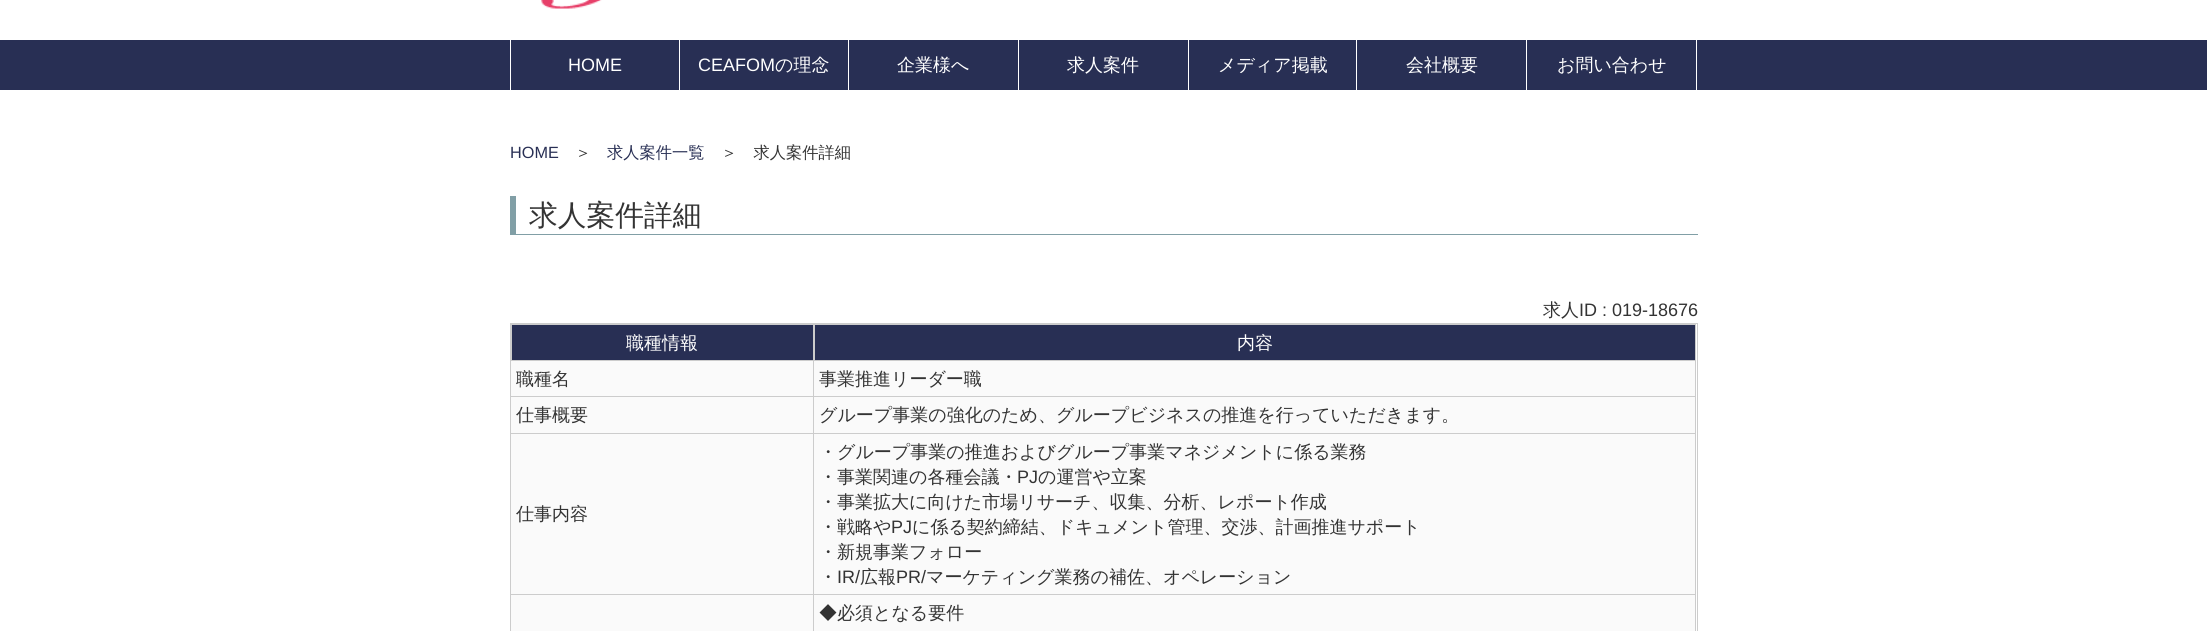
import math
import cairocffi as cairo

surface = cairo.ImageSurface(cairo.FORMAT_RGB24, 2207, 631)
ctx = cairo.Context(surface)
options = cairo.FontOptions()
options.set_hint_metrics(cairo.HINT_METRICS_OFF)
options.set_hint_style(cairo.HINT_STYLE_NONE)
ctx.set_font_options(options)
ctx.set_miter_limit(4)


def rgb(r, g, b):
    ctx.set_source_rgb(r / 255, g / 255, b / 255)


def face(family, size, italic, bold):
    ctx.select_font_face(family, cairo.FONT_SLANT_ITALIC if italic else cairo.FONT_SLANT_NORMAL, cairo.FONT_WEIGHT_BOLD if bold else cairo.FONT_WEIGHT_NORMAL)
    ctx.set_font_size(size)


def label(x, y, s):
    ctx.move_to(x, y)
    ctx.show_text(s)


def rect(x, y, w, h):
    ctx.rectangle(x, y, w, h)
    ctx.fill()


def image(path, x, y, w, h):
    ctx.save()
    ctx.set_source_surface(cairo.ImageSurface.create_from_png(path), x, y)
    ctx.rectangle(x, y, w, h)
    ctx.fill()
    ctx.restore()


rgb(255, 255, 255)
ctx.paint()
image('image0.png', 541, 0, 61, 9)
rgb(40, 47, 84)
rect(0, 40, 2207, 50)
rgb(255, 255, 255)
rect(679, 40, 1, 50)
rect(510, 40, 1, 50)
face('Liberation Sans', 18, 0, 0)
label(568, 71, 'HOME')
rect(848, 40, 1, 50)
label(698, 71, 'CEAFOM')
face('WenQuanYi Zen Hei Medium', 18, 0, 0)
label(775, 71, 'の理念')
rect(1018, 40, 1, 50)
label(897, 71, '企業様へ')
rect(1188, 40, 1, 50)
label(1067, 71, '求人案件')
rect(1356, 40, 1, 50)
label(1218, 71, 'メディア掲載')
rect(1526, 40, 1, 50)
label(1406, 71, '会社概要')
rect(1696, 40, 1, 50)
label(1557, 71, 'お問い合わせ')
face('Liberation Sans', 16.25, 0, 0)
rgb(40, 47, 84)
label(510, 158, 'HOME')
face('WenQuanYi Zen Hei Medium', 16.25, 0, 0)
rgb(51, 51, 51)
label(575, 158, '＞')
rgb(40, 47, 84)
label(607, 158, '求人案件一覧')
rgb(51, 51, 51)
label(721, 158, '＞　求人案件詳細')
rgb(129, 159, 166)
rect(510, 234, 1188, 1)
rect(510, 196, 6, 39)
face('WenQuanYi Zen Hei Medium', 28.75, 0, 0)
rgb(51, 51, 51)
label(529, 225, '求人案件詳細')
face('WenQuanYi Zen Hei Medium', 18, 0, 0)
label(1543, 316, '求人')
face('Liberation Sans', 18, 0, 0)
label(1579, 316, 'ID : 019-18676')
ctx.rectangle(510.5, 323.5, 1187, 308)
rgb(204, 204, 204)
ctx.set_line_width(1)
ctx.stroke()
rgb(40, 47, 84)
ctx.rectangle(511.5, 324.5, 302, 36)
ctx.fill_preserve()
rgb(204, 204, 204)
ctx.stroke()
face('WenQuanYi Zen Hei Medium', 18, 0, 0)
rgb(255, 255, 255)
label(626, 349, '職種情報')
rgb(40, 47, 84)
ctx.rectangle(814.5, 324.5, 881, 36)
ctx.fill_preserve()
rgb(204, 204, 204)
ctx.stroke()
rgb(255, 255, 255)
label(1237, 349, '内容')
rgb(250, 250, 250)
rect(511, 361, 302, 72)
rgb(204, 204, 204)
rect(813, 361, 1, 270)
rect(511, 396, 303, 1)
rgb(51, 51, 51)
label(516, 385, '職種名')
rgb(250, 250, 250)
rect(814, 361, 881, 72)
rgb(204, 204, 204)
rect(1695, 361, 1, 270)
rect(814, 396, 882, 1)
rgb(51, 51, 51)
label(819, 385, '事業推進リーダー職')
rgb(204, 204, 204)
rect(511, 433, 1185, 1)
rgb(51, 51, 51)
label(516, 421, '仕事概要')
label(819, 421, 'グループ事業の強化のため、グループビジネスの推進を行っていただきます。')
rgb(250, 250, 250)
rect(511, 434, 302, 160)
rgb(204, 204, 204)
rect(511, 594, 1185, 1)
rgb(51, 51, 51)
label(516, 520, '仕事内容')
rgb(250, 250, 250)
rect(814, 434, 881, 160)
rgb(51, 51, 51)
label(819, 458, '・グループ事業の推進およびグループ事業マネジメントに係る業務')
label(819, 483, '・事業関連の各種会議・')
face('Liberation Sans', 18, 0, 0)
label(1017, 483, 'PJ')
face('WenQuanYi Zen Hei Medium', 18, 0, 0)
label(1038, 483, 'の運営や立案')
label(819, 508, '・事業拡大に向けた市場リサーチ、収集、分析、レポート作成')
label(819, 533, '・戦略や')
face('Liberation Sans', 18, 0, 0)
label(891, 533, 'PJ')
face('WenQuanYi Zen Hei Medium', 18, 0, 0)
label(912, 533, 'に係る契約締結、ドキュメント管理、交渉、計画推進サポート')
label(819, 558, '・新規事業フォロー')
label(819, 583, '・')
face('Liberation Sans', 18, 0, 0)
label(837, 583, 'IR/')
face('WenQuanYi Zen Hei Medium', 18, 0, 0)
label(860, 583, '広報')
face('Liberation Sans', 18, 0, 0)
label(896, 583, 'PR/')
face('WenQuanYi Zen Hei Medium', 18, 0, 0)
label(926, 583, 'マーケティング業務の補佐、オペレーション')
rgb(250, 250, 250)
rect(511, 595, 302, 36)
rect(814, 595, 881, 36)
rgb(51, 51, 51)
label(819, 619, '◆必須となる要件')
surface.write_to_png('render.png')
